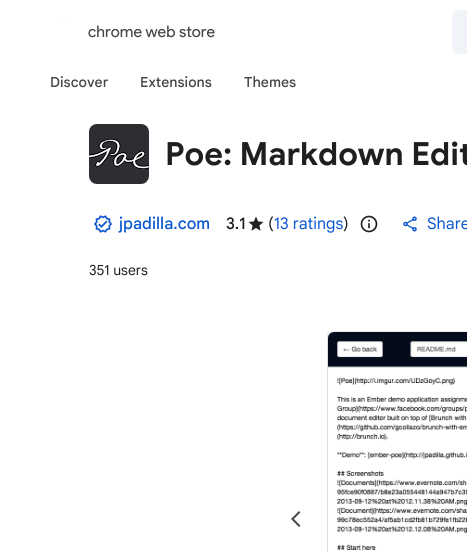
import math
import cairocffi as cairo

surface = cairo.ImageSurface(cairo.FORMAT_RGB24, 467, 552)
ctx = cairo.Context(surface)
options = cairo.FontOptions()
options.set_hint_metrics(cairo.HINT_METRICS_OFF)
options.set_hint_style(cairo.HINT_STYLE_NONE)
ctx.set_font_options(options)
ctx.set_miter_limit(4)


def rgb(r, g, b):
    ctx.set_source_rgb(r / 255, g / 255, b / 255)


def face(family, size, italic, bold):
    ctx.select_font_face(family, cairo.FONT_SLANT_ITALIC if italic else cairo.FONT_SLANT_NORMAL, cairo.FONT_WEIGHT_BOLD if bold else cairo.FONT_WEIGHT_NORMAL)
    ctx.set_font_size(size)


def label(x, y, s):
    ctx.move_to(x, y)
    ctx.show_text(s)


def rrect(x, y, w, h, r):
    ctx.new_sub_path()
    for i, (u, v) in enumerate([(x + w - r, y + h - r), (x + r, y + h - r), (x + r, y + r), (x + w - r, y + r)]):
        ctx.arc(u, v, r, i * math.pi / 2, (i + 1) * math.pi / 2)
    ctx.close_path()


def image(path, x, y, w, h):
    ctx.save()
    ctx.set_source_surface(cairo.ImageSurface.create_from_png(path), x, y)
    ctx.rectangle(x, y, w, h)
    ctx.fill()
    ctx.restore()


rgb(255, 255, 255)
ctx.paint()
image('image0.png', 61, 21, 6, 1)
face('Product Sans', 16, 0, 0)
rgb(68, 71, 70)
label(88, 37, 'chrome web store')
rgb(240, 244, 249)
rrect(452, 10, 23, 44, 8)
ctx.fill()
face('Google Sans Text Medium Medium', 14, 0, 0)
rgb(68, 71, 70)
label(50, 87, 'Discover')
label(140, 87, 'Extensions')
label(244, 87, 'Themes')
image('image1.png', 89, 124, 60, 60)
face('Google Sans', 32, 0, 1)
rgb(31, 31, 31)
label(165, 165, 'Poe: Markdown Edit')
image('image2.png', 94, 215, 18, 18)
face('Google Sans Medium', 16, 0, 0)
rgb(11, 87, 208)
label(119, 229, 'jpadilla.com')
rgb(31, 31, 31)
label(226, 229, '3.1')
image('image3.png', 248, 216, 16, 15)
face('Google Sans', 16, 0, 0)
label(268, 229, '(')
rgb(11, 87, 208)
label(274, 229, '13 ratings')
rgb(31, 31, 31)
label(343, 229, ')')
image('image4.png', 360, 215, 18, 18)
image('image5.png', 403, 216, 14, 16)
face('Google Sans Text', 16, 0, 0)
rgb(11, 87, 208)
label(427, 229, 'Share')
face('Google Sans', 14, 0, 0)
rgb(31, 31, 31)
label(89, 275, '351 users')
image('image6.png', 291, 511, 10, 16)
image('image7.png', 327, 331, 140, 221)
surface.write_to_png('render.png')
